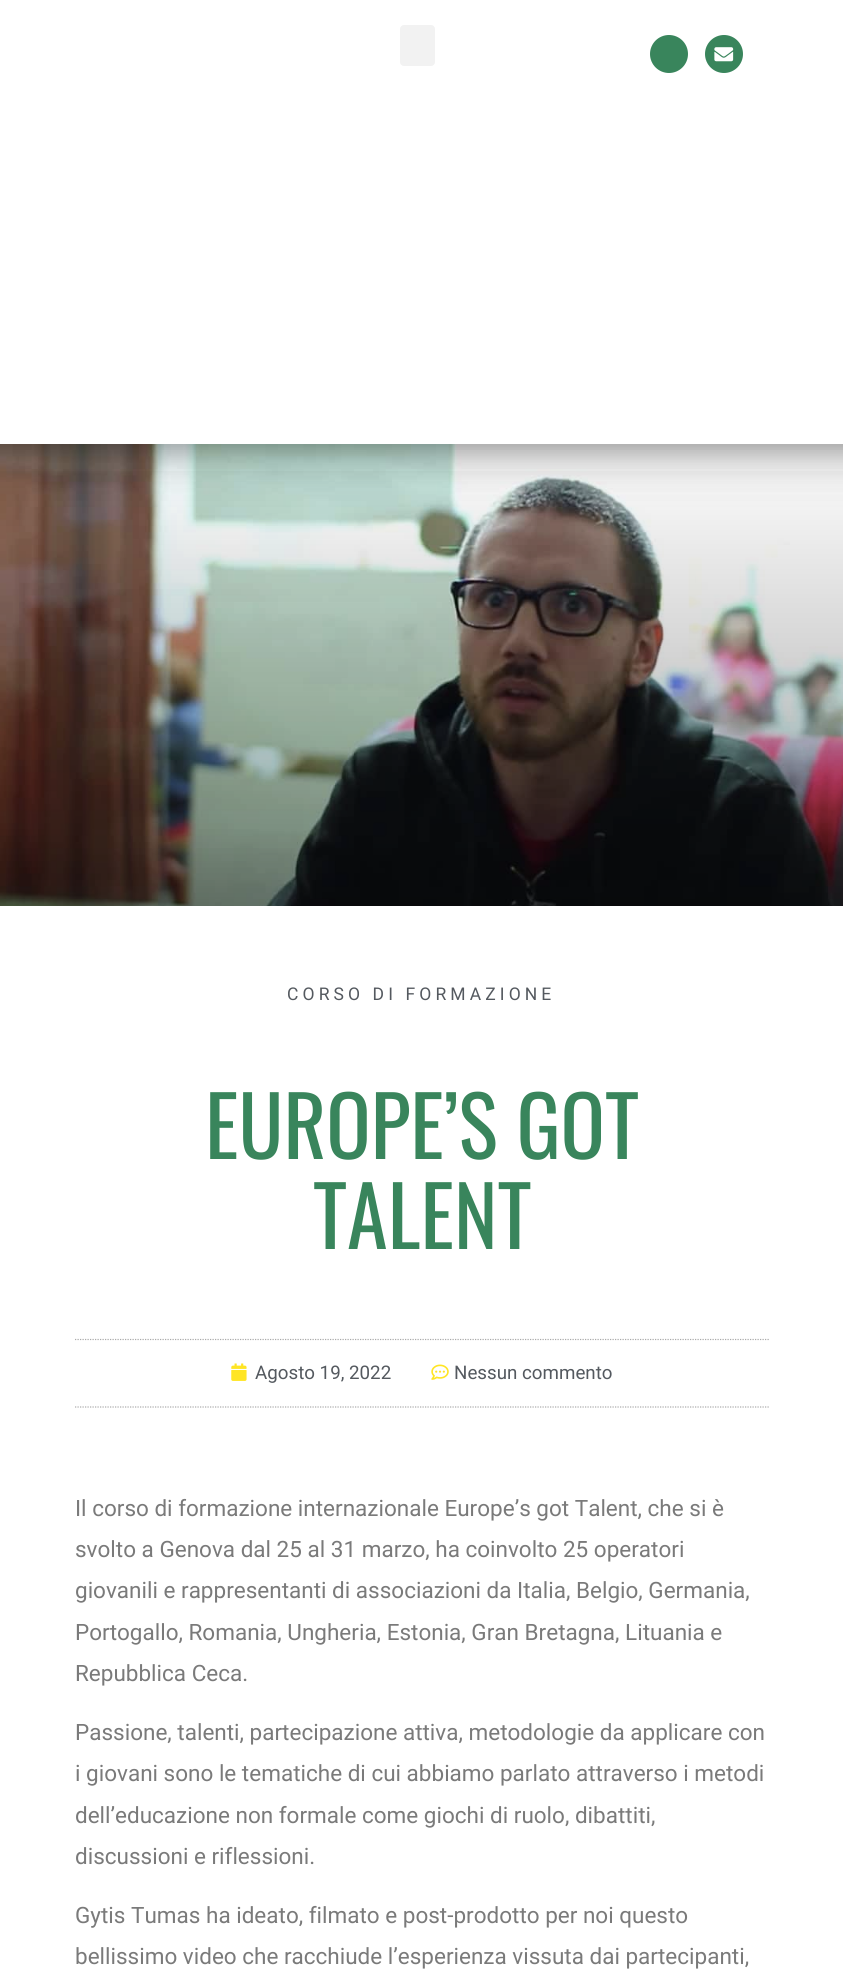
import math
import cairocffi as cairo

surface = cairo.ImageSurface(cairo.FORMAT_RGB24, 843, 1985)
ctx = cairo.Context(surface)
options = cairo.FontOptions()
options.set_hint_metrics(cairo.HINT_METRICS_OFF)
options.set_hint_style(cairo.HINT_STYLE_NONE)
ctx.set_font_options(options)
ctx.set_miter_limit(4)


def rgb(r, g, b):
    ctx.set_source_rgb(r / 255, g / 255, b / 255)


def face(family, size, italic, bold):
    ctx.select_font_face(family, cairo.FONT_SLANT_ITALIC if italic else cairo.FONT_SLANT_NORMAL, cairo.FONT_WEIGHT_BOLD if bold else cairo.FONT_WEIGHT_NORMAL)
    ctx.set_font_size(size)


def label(x, y, s):
    ctx.move_to(x, y)
    ctx.show_text(s)


def tracked(x, y, s, letter, word):
    ctx.move_to(x, y)
    for ch in s:
        ctx.show_text(ch)
        ctx.rel_move_to(letter + word * (ch == ' '), 0)


def rect(x, y, w, h):
    ctx.rectangle(x, y, w, h)
    ctx.fill()


def rrect(x, y, w, h, r):
    ctx.new_sub_path()
    for i, (u, v) in enumerate([(x + w - r, y + h - r), (x + r, y + h - r), (x + r, y + r), (x + w - r, y + r)]):
        ctx.arc(u, v, r, i * math.pi / 2, (i + 1) * math.pi / 2)
    ctx.close_path()


def image(path, x, y, w, h):
    ctx.save()
    ctx.set_source_surface(cairo.ImageSurface.create_from_png(path), x, y)
    ctx.rectangle(x, y, w, h)
    ctx.fill()
    ctx.restore()


rgb(255, 255, 255)
ctx.paint()
rgb(242, 242, 242)
rrect(400, 25, 35, 41, 4)
ctx.fill()
rgb(57, 133, 92)
ctx.arc(669, 54, 19, 0, 2 * math.pi)
ctx.fill()
ctx.arc(724, 54, 19, 0, 2 * math.pi)
ctx.fill()
image('image0.png', 714, 47, 20, 15)
image('image1.png', 0, 444, 843, 462)
gradient = cairo.LinearGradient(422, 444, 422, 1069)
gradient.add_color_stop_rgba(0, 0, 0, 0, 0)
gradient.add_color_stop_rgba(1, 0, 0, 0, 0.5)
ctx.set_source(gradient)
rect(0, 471, 843, 435)
face('Roboto', 17.5, 0, 0)
rgb(84, 89, 95)
tracked(287, 1000, 'CORSO DI FORMAZIONE', 4.1, 0)
face('Oswald', 82.5, 0, 0)
rgb(57, 133, 92)
label(205, 1159, 'EUROPE’S GOT')
label(313, 1249, 'TALENT')
ctx.new_path()
ctx.move_to(75, 1339.5)
ctx.line_to(769, 1339.5)
rgb(170, 170, 170)
ctx.set_line_width(1.2)
ctx.set_dash([1.25, 1.25])
ctx.stroke()
ctx.new_path()
ctx.move_to(75, 1407)
ctx.line_to(769, 1407)
ctx.stroke()
image('image2.png', 231, 1363, 16, 18)
face('Roboto', 18.75, 0, 0)
rgb(84, 89, 95)
label(255, 1379, 'Agosto 19, 2022')
image('image3.png', 431, 1364, 18, 16)
label(454, 1379, 'Nessun commento')
face('Roboto', 22.5, 0, 0)
rgb(122, 122, 122)
label(75, 1516, 'Il corso di formazione internazionale Europe’s got Talent, che si è')
label(75, 1557, 'svolto a Genova dal 25 al 31 marzo, ha coinvolto 25 operatori')
label(75, 1598, 'giovanili e rappresentanti di associazioni da Italia, Belgio, Germania,')
label(75, 1640, 'Portogallo, Romania, Ungheria, Estonia, Gran Bretagna, Lituania e')
label(75, 1681, 'Repubblica Ceca.')
label(75, 1740, 'Passione, talenti, partecipazione attiva, metodologie da applicare con')
label(75, 1781, 'i giovani sono le tematiche di cui abbiamo parlato attraverso i metodi')
label(75, 1823, 'dell’educazione non formale come giochi di ruolo, dibattiti,')
label(75, 1864, 'discussioni e riflessioni.')
label(75, 1923, 'Gytis Tumas ha ideato, filmato e post-prodotto per noi questo')
label(75, 1964, 'bellissimo video che racchiude l’esperienza vissuta dai partecipanti,')
surface.write_to_png('render.png')
